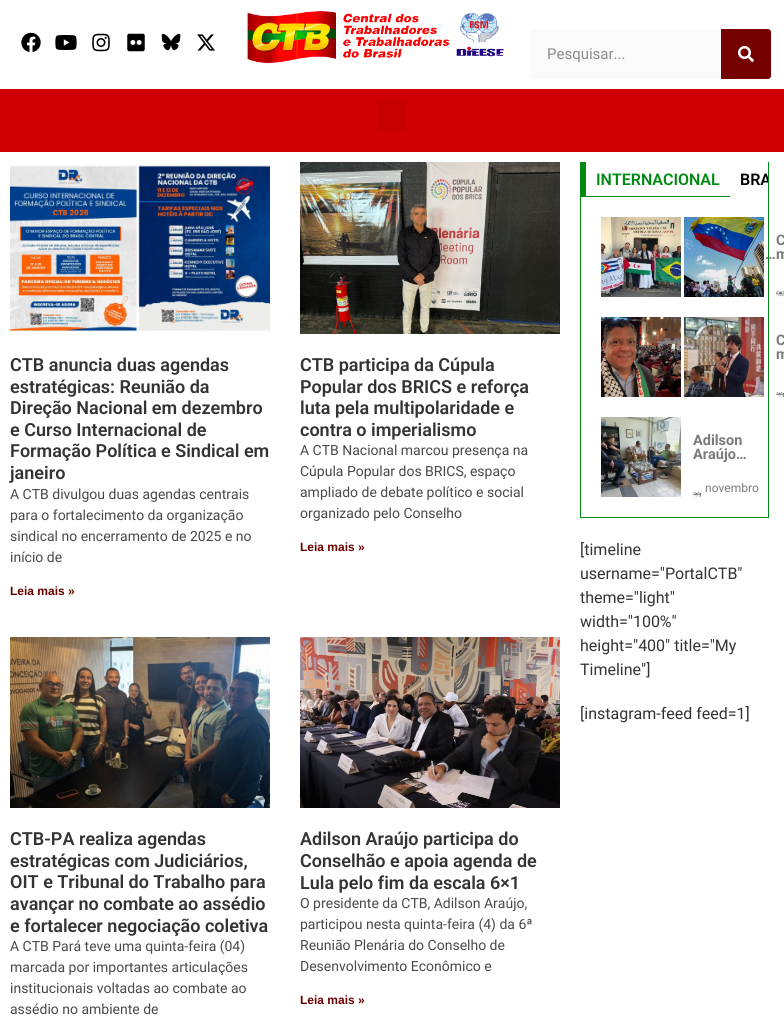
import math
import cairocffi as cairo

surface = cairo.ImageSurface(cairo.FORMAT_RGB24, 784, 1032)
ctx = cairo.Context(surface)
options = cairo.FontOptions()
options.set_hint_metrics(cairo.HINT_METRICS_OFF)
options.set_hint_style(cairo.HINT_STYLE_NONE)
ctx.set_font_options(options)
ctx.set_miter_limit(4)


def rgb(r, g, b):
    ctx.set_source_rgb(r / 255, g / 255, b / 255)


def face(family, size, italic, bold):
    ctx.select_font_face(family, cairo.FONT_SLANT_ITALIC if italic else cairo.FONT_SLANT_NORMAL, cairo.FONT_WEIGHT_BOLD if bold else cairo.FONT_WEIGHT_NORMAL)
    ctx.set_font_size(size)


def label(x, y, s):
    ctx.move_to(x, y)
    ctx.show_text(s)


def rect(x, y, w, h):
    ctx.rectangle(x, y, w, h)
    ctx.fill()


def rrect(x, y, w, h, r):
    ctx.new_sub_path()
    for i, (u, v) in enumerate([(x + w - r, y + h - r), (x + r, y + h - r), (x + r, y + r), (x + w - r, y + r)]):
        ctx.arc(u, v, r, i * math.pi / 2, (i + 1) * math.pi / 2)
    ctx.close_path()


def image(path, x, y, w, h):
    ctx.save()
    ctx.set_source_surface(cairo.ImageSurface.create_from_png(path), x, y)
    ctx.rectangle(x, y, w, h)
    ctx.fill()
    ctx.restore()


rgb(255, 255, 255)
ctx.paint()
image('image0.png', 21, 32, 20, 20)
image('image1.png', 55, 35, 22, 15)
image('image2.png', 92, 33, 18, 19)
image('image3.png', 127, 33, 18, 19)
image('image4.png', 161, 33, 20, 18)
image('image5.png', 197, 34, 18, 17)
image('image6.png', 247, 11, 257, 53)
rgb(250, 250, 250)
rrect(530, 29, 241, 50, 3)
ctx.fill()
face('Roboto', 15, 0, 0)
rgb(139, 139, 139)
label(547, 59, 'Pesquisar...')
rgb(117, 0, 0)
ctx.new_path()
ctx.move_to(721, 29)
ctx.line_to(768, 29)
ctx.curve_to(769.5, 29, 771, 30.5, 771, 32)
ctx.line_to(771, 76)
ctx.curve_to(771, 77.5, 769.5, 79, 768, 79)
ctx.line_to(721, 79)
ctx.close_path()
ctx.fill()
image('image7.png', 738, 46, 16, 16)
rgb(209, 0, 0)
rect(0, 89, 784, 63)
rgb(199, 0, 0)
rrect(378, 99, 28, 33, 3)
ctx.fill()
image('image8.png', 10, 164, 260, 168)
face('Roboto SemiBold', 18, 0, 0)
rgb(51, 51, 51)
label(10, 371, 'CTB anuncia duas agendas')
label(10, 393, 'estratégicas: Reunião da')
label(10, 414, 'Direção Nacional em dezembro')
label(10, 436, 'e Curso Internacional de')
label(10, 457, 'Formação Política e Sindical em')
label(10, 479, 'janeiro')
face('Roboto', 14, 0, 0)
rgb(73, 73, 73)
label(10, 499, 'A CTB divulgou duas agendas centrais')
label(10, 520, 'para o fortalecimento da organização')
label(10, 541, 'sindical no encerramento de 2025 e no')
label(10, 562, 'início de')
face('Liberation Sans', 12, 0, 1)
rgb(105, 0, 0)
label(10, 595, 'Leia mais »')
image('image9.png', 300, 162, 260, 172)
face('Roboto SemiBold', 18, 0, 0)
rgb(51, 51, 51)
label(300, 371, 'CTB participa da Cúpula')
label(300, 393, 'Popular dos BRICS e reforça')
label(300, 414, 'luta pela multipolaridade e')
label(300, 436, 'contra o imperialismo')
face('Roboto', 14, 0, 0)
rgb(73, 73, 73)
label(300, 455, 'A CTB Nacional marcou presença na')
label(300, 476, 'Cúpula Popular dos BRICS, espaço')
label(300, 497, 'ampliado de debate político e social')
label(300, 518, 'organizado pelo Conselho')
face('Liberation Sans', 12, 0, 1)
rgb(105, 0, 0)
label(300, 551, 'Leia mais »')
image('image10.png', 10, 637, 260, 171)
face('Roboto SemiBold', 18, 0, 0)
rgb(51, 51, 51)
label(10, 845, 'CTB-PA realiza agendas')
label(10, 867, 'estratégicas com Judiciários,')
label(10, 888, 'OIT e Tribunal do Trabalho para')
label(10, 910, 'avançar no combate ao assédio')
label(10, 932, 'e fortalecer negociação coletiva')
face('Roboto', 14, 0, 0)
rgb(73, 73, 73)
label(10, 951, 'A CTB Pará teve uma quinta-feira (04)')
label(10, 972, 'marcada por importantes articulações')
label(10, 993, 'institucionais voltadas ao combate ao')
label(10, 1014, 'assédio no ambiente de')
image('image11.png', 300, 637, 260, 171)
face('Roboto SemiBold', 18, 0, 0)
rgb(51, 51, 51)
label(300, 845, 'Adilson Araújo participa do')
label(300, 867, 'Conselhão e apoia agenda de')
label(300, 889, 'Lula pelo fim da escala 6×1')
face('Roboto', 14, 0, 0)
rgb(73, 73, 73)
label(300, 908, 'O presidente da CTB, Adilson Araújo,')
label(300, 929, 'participou nesta quinta-feira (4) da 6ª')
label(300, 950, 'Reunião Plenária do Conselho de')
label(300, 971, 'Desenvolvimento Econômico e')
face('Liberation Sans', 12, 0, 1)
rgb(105, 0, 0)
label(300, 1004, 'Leia mais »')
rgb(0, 138, 19)
rect(768, 162, 1, 356)
rect(580, 517, 189, 1)
rect(580, 162, 1, 356)
rect(581, 196, 149, 1)
rect(581, 162, 5, 35)
face('Roboto SemiBold', 16, 0, 0)
label(596, 185, 'INTERNACIONAL')
ctx.save()
ctx.rectangle(581, 162, 187, 35)
ctx.clip()
rgb(0, 0, 0)
label(740, 185, 'BRA')
ctx.restore()
image('image12.png', 601, 217, 80, 80)
face('Roboto', 14.5, 0, 1)
rgb(122, 122, 122)
label(765, 259, '…')
image('image13.png', 684, 217, 80, 80)
label(776, 245, 'C')
label(776, 259, 'm')
image('image14.png', 776, 290, 8, 7)
image('image15.png', 601, 317, 80, 80)
image('image16.png', 684, 317, 80, 80)
label(776, 345, 'C')
label(776, 359, 'm')
image('image17.png', 776, 392, 8, 5)
image('image18.png', 601, 417, 80, 80)
label(693, 445, 'Adilson')
label(693, 459, 'Araújo…')
face('Roboto', 12, 0, 0)
label(705, 492, 'novembro')
image('image17.png', 693, 492, 8, 5)
face('Roboto', 16, 0, 0)
rgb(51, 51, 51)
label(580, 555, '[timeline')
label(580, 579, 'username="PortalCTB"')
label(580, 603, 'theme="light"')
label(580, 627, 'width="100%"')
label(580, 651, 'height="400" title="My')
label(580, 675, 'Timeline"]')
label(580, 719, '[instagram-feed feed=1]')
surface.write_to_png('render.png')
